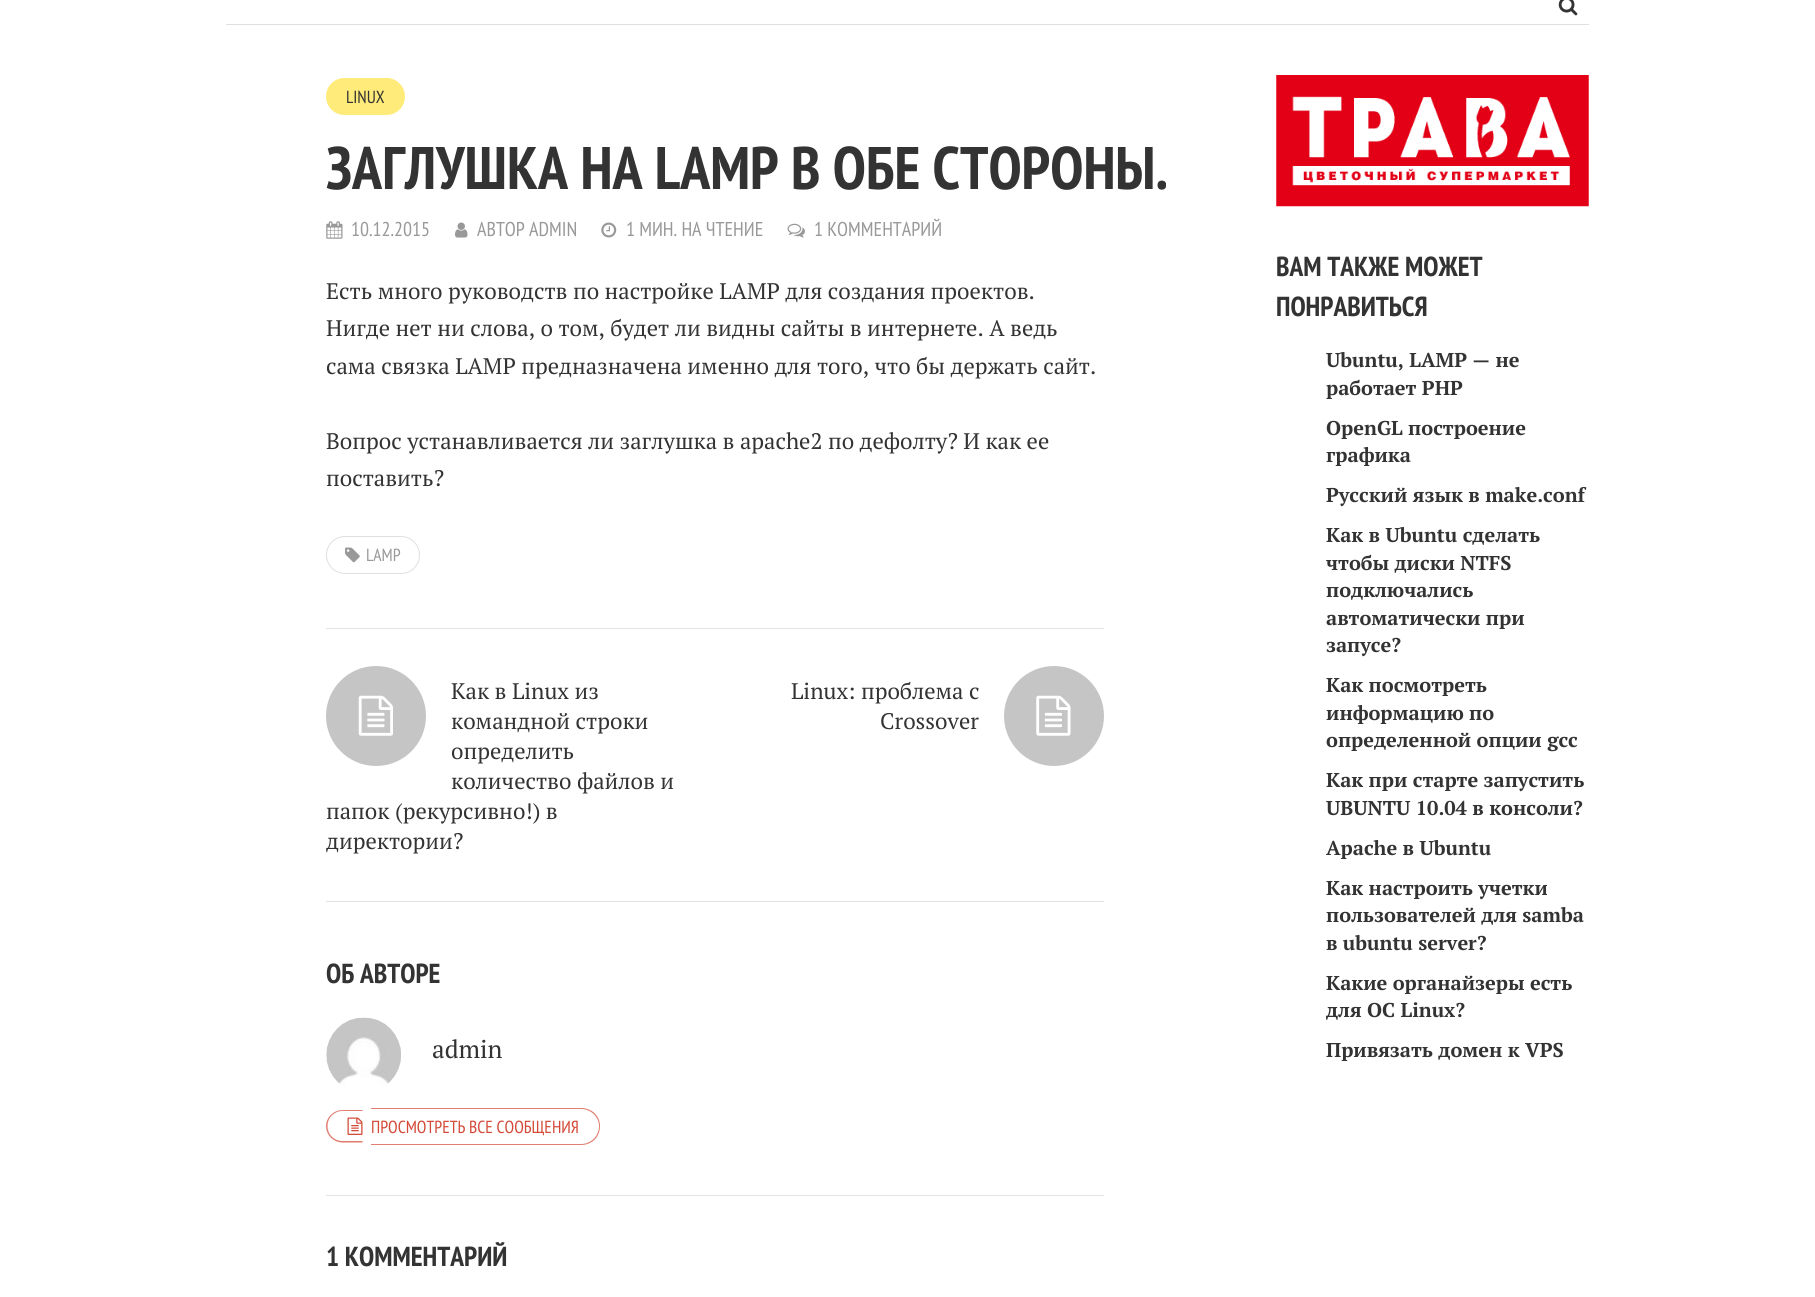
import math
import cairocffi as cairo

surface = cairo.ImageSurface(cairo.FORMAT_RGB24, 1815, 1297)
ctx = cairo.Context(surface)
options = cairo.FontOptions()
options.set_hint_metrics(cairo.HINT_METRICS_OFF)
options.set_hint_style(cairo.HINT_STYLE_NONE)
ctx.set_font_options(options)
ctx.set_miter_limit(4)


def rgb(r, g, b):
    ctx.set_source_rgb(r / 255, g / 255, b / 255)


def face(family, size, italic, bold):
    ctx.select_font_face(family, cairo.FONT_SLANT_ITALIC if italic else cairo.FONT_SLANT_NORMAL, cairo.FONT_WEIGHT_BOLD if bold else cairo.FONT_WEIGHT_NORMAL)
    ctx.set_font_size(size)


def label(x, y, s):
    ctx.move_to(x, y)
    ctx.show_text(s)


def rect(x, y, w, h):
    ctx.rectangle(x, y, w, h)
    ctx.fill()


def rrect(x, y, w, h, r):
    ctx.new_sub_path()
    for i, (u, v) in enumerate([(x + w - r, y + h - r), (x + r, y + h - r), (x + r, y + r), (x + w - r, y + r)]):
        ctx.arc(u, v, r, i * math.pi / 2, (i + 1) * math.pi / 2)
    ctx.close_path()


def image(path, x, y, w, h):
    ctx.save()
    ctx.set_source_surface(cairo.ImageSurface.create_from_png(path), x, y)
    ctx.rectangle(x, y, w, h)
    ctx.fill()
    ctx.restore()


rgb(255, 255, 255)
ctx.paint()
rgb(224, 224, 224)
rect(226, 24, 1363, 1)
image('image0.png', 1558, 0, 20, 16)
rgb(255, 235, 121)
rrect(326, 78, 79, 37, 18.5)
ctx.fill()
face('PT Sans Narrow', 17.5, 0, 0)
rgb(51, 51, 51)
label(346, 103, 'LINUX')
face('PT Sans Narrow', 60, 0, 1)
label(326, 189, 'ЗАГЛУШКА НА LAMP В ОБЕ СТОРОНЫ.')
image('image1.png', 326, 221, 17, 18)
face('PT Sans Narrow', 20, 0, 0)
rgb(153, 153, 153)
label(351, 236, '10.12.2015')
image('image2.png', 455, 222, 13, 16)
label(477, 236, 'АВТОР ADMIN')
image('image3.png', 601, 222, 16, 16)
label(626, 236, '1 МИН. НА ЧТЕНИЕ')
image('image4.png', 787, 223, 18, 15)
label(814, 236, '1 КОММЕНТАРИЙ')
face('PT Serif', 22.5, 0, 0)
rgb(51, 51, 51)
label(326, 299, 'Есть много руководств по настройке LAMP для создания проектов.')
label(326, 336, 'Нигде нет ни слова, о том, будет ли видны сайты в интернете. А ведь')
label(326, 374, 'сама связка LAMP предназначена именно для того, что бы держать сайт.')
label(326, 449, 'Вопрос устанавливается ли заглушка в apache2 по дефолту? И как ее')
label(326, 486, 'поставить?')
rrect(326.5, 536.5, 93, 37, 18.5)
rgb(224, 224, 224)
ctx.set_line_width(1)
ctx.stroke()
image('image5.png', 345, 547, 15, 16)
face('PT Sans Narrow', 17.5, 0, 0)
rgb(153, 153, 153)
label(366, 561, 'LAMP')
rgb(226, 226, 226)
rect(326, 628, 778, 1)
rgb(197, 197, 197)
ctx.new_path()
ctx.arc(376, 716, 50, 0, 2 * math.pi)
ctx.fill()
image('image6.png', 358, 695, 35, 41)
face('PT Serif', 22.5, 0, 0)
rgb(51, 51, 51)
label(451, 699, 'Как в Linux из')
label(451, 729, 'командной строки')
label(451, 759, 'определить')
label(451, 789, 'количество файлов и')
label(326, 819, 'папок (рекурсивно!) в')
label(326, 849, 'директории?')
label(791, 699, 'Linux: проблема с')
label(880, 729, 'Crossover')
rgb(197, 197, 197)
ctx.new_path()
ctx.arc(1054, 716, 50, 0, 2 * math.pi)
ctx.fill()
image('image7.png', 1036, 695, 35, 41)
rgb(226, 226, 226)
rect(326, 901, 778, 1)
face('PT Sans Narrow', 27.5, 0, 1)
rgb(51, 51, 51)
label(326, 983, 'ОБ АВТОРЕ')
image('image8.png', 326, 1017, 75, 69)
face('PT Serif', 25, 0, 0)
label(432, 1058, 'admin')
rgb(224, 127, 114)
ctx.set_fill_rule(cairo.FILL_RULE_EVEN_ODD)
ctx.new_path()
ctx.move_to(342.5, 1110)
ctx.line_to(362.5, 1110)
ctx.line_to(362.5, 1142.5)
ctx.line_to(342.5, 1142.5)
ctx.curve_to(333.5, 1142.5, 326, 1135, 326, 1126)
ctx.curve_to(326, 1117.5, 333.5, 1110, 342.5, 1110)
ctx.close_path()
ctx.move_to(342.5, 1111)
ctx.line_to(362.5, 1111)
ctx.line_to(362.5, 1141)
ctx.line_to(342.5, 1141)
ctx.curve_to(334, 1141, 327.5, 1134.5, 327.5, 1126)
ctx.curve_to(327.5, 1118, 334, 1111, 342.5, 1111)
ctx.close_path()
ctx.fill()
image('image9.png', 347, 1117, 16, 18)
ctx.new_path()
ctx.move_to(371, 1108)
ctx.line_to(581, 1108)
ctx.curve_to(592, 1108, 600, 1116, 600, 1126)
ctx.curve_to(600, 1137, 592, 1145, 581, 1145)
ctx.line_to(371, 1145)
ctx.close_path()
ctx.move_to(371, 1109)
ctx.line_to(581, 1109)
ctx.curve_to(591, 1109, 599, 1117, 599, 1126)
ctx.curve_to(599, 1136, 591, 1144, 581, 1144)
ctx.line_to(371, 1144)
ctx.close_path()
ctx.fill()
face('PT Sans Narrow', 17.5, 0, 0)
rgb(211, 72, 54)
label(371, 1133, 'ПРОСМОТРЕТЬ ВСЕ СООБЩЕНИЯ')
rgb(226, 226, 226)
rect(326, 1195, 778, 1)
face('PT Sans Narrow', 27.5, 0, 1)
rgb(51, 51, 51)
label(326, 1266, '1 КОММЕНТАРИЙ')
image('image10.png', 1276, 75, 313, 132)
label(1276, 276, 'ВАМ ТАКЖЕ МОЖЕТ')
label(1276, 316, 'ПОНРАВИТЬСЯ')
face('PT Serif', 20, 0, 1)
label(1326, 367, 'Ubuntu, LAMP — не')
label(1326, 395, 'работает PHP')
label(1326, 435, 'OpenGL построение')
label(1326, 462, 'графика')
label(1326, 502, 'Русский язык в make.conf')
label(1326, 542, 'Как в Ubuntu сделать')
label(1326, 570, 'чтобы диски NTFS')
label(1326, 597, 'подключались')
label(1326, 625, 'автоматически при')
label(1326, 652, 'запусе?')
label(1326, 692, 'Как посмотреть')
label(1326, 720, 'информацию по')
label(1326, 747, 'определенной опции gcc')
label(1326, 787, 'Как при старте запустить')
label(1326, 815, 'UBUNTU 10.04 в консоли?')
label(1326, 855, 'Apache в Ubuntu')
label(1326, 895, 'Как настроить учетки')
label(1326, 922, 'пользователей для samba')
label(1326, 950, 'в ubuntu server?')
label(1326, 990, 'Какие органайзеры есть')
label(1326, 1017, 'для ОС Linux?')
label(1326, 1057, 'Привязать домен к VPS')
surface.write_to_png('render.png')
